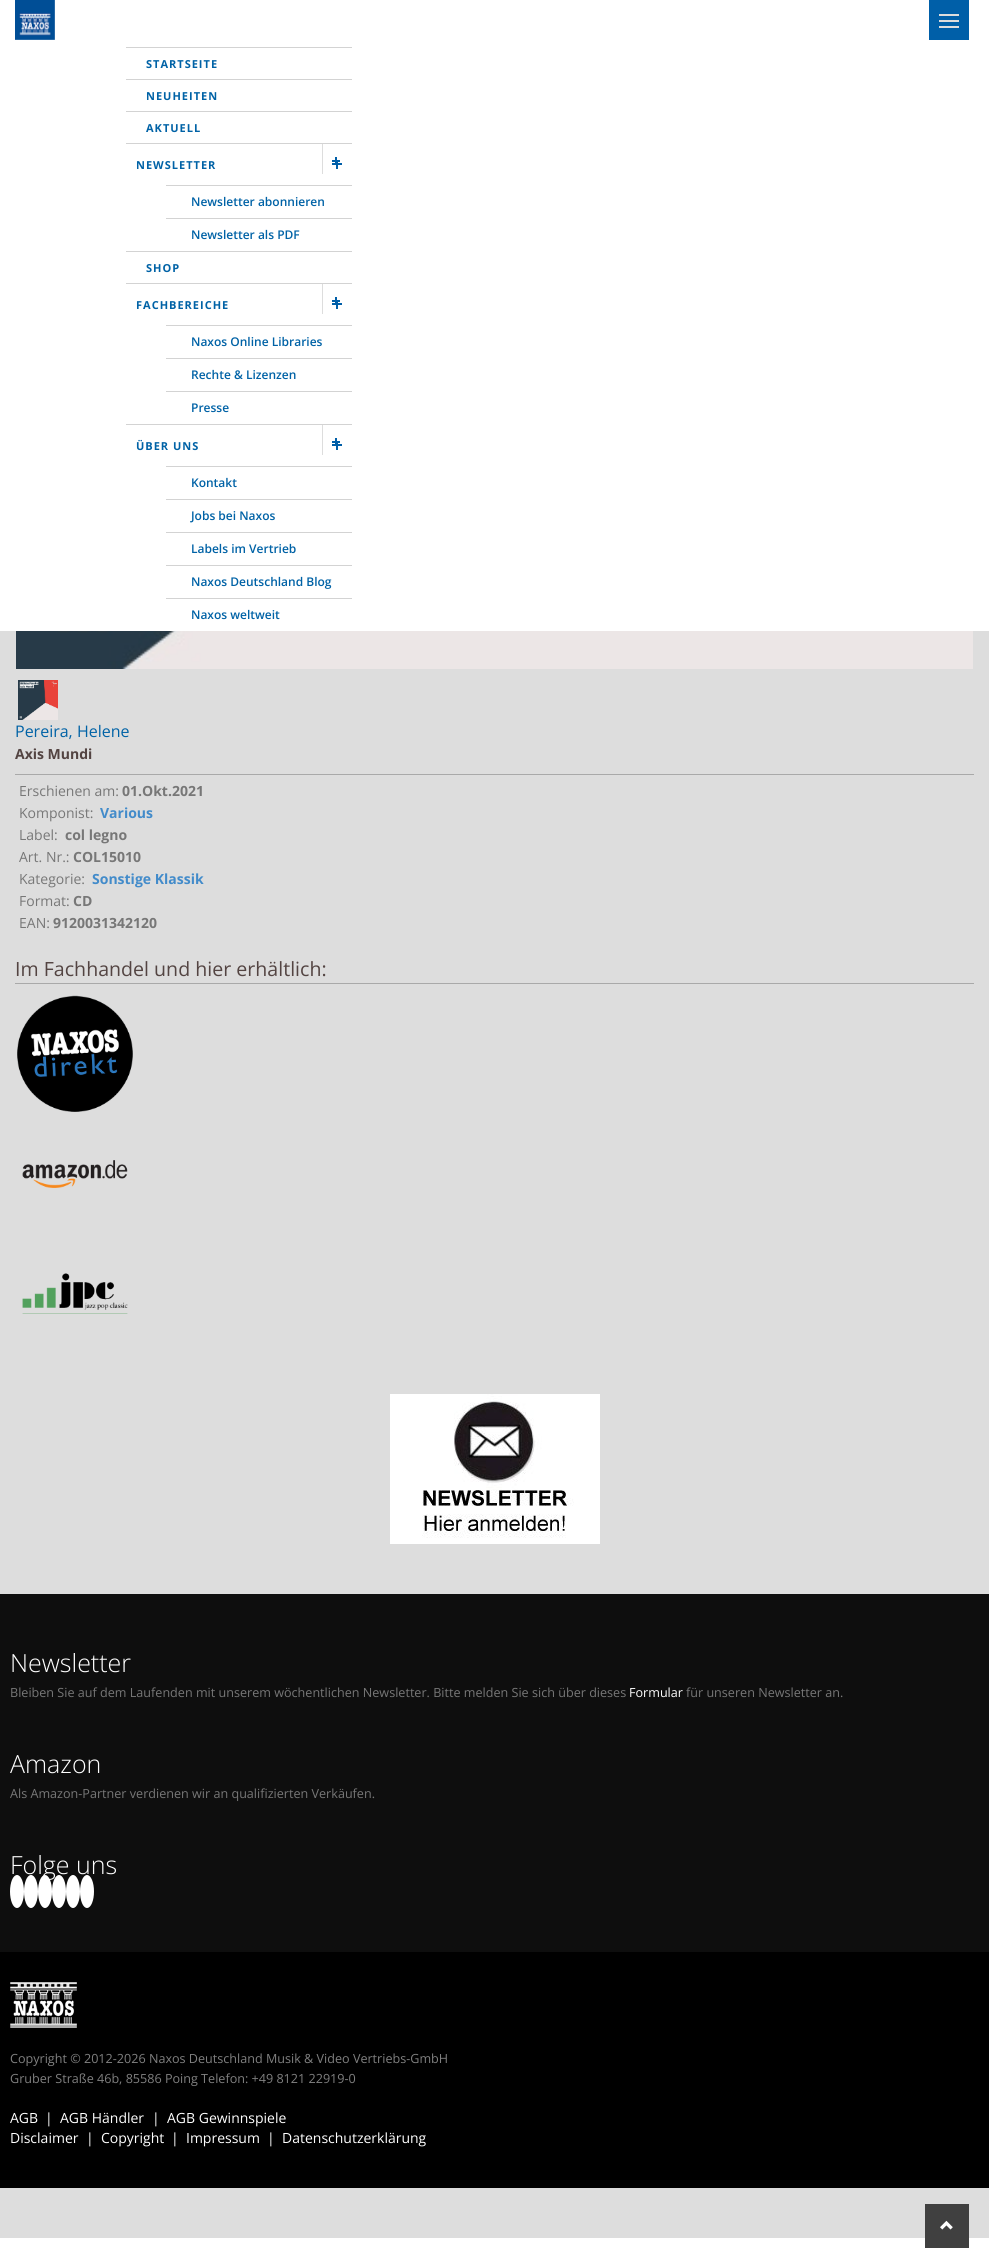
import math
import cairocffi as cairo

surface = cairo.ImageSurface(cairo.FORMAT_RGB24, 989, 2248)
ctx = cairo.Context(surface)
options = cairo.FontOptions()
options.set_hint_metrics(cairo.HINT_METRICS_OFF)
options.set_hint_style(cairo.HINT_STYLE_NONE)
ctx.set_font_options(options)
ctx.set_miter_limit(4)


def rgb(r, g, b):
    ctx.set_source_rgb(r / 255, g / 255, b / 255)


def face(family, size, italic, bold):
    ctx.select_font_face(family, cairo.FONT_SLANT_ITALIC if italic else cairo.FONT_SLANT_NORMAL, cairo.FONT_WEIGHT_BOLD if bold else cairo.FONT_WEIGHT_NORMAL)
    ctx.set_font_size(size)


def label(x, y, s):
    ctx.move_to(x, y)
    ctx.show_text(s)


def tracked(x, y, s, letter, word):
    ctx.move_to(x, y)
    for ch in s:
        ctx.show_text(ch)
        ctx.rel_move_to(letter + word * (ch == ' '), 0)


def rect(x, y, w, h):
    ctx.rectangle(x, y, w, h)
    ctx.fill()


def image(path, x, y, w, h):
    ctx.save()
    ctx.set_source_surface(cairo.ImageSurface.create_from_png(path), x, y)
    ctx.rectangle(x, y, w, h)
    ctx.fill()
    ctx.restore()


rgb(255, 255, 255)
ctx.paint()
rgb(221, 221, 221)
rect(0, 631, 989, 1607)
image('image0.png', 15, 0, 40, 40)
rgb(0, 95, 168)
rect(929, 0, 40, 40)
rgb(221, 221, 221)
rect(939, 14, 20, 2)
rect(939, 20, 20, 2)
rect(939, 26, 20, 2)
rgb(211, 211, 211)
rect(126, 47, 226, 1)
face('Open Sans', 11, 0, 1)
rgb(0, 98, 166)
tracked(146, 68, 'STARTSEITE', 1, 0)
rgb(211, 211, 211)
rect(126, 79, 226, 1)
rgb(0, 98, 166)
tracked(146, 100, 'NEUHEITEN', 1, 0)
rgb(211, 211, 211)
rect(126, 111, 226, 1)
rgb(0, 98, 166)
tracked(146, 132, 'AKTUELL', 1, 0)
rgb(211, 211, 211)
rect(126, 143, 226, 1)
rgb(0, 98, 166)
tracked(136, 169, 'NEWSLETTER', 1, 0)
rgb(0, 95, 168)
rect(336, 160, 2, 9)
rect(332, 163, 10, 2)
rgb(221, 221, 221)
rect(322, 144, 1, 30)
rgb(0, 95, 168)
rect(335, 157, 2, 8)
rect(332, 160, 8, 2)
rgb(211, 211, 211)
rect(166, 185, 186, 1)
face('Open Sans SemiBold', 12, 0, 0)
rgb(0, 98, 166)
label(191, 206, 'Newsletter abonnieren')
rgb(211, 211, 211)
rect(166, 218, 186, 1)
rgb(0, 98, 166)
label(191, 239, 'Newsletter als PDF')
rgb(211, 211, 211)
rect(126, 251, 226, 1)
face('Open Sans', 11, 0, 1)
rgb(0, 98, 166)
tracked(146, 272, 'SHOP', 1, 0)
rgb(211, 211, 211)
rect(126, 283, 226, 1)
rgb(0, 98, 166)
tracked(136, 309, 'FACHBEREICHE', 1, 0)
rgb(0, 95, 168)
rect(336, 300, 2, 9)
rect(332, 303, 10, 2)
rgb(221, 221, 221)
rect(322, 284, 1, 30)
rgb(0, 95, 168)
rect(335, 297, 2, 8)
rect(332, 300, 8, 2)
rgb(211, 211, 211)
rect(166, 325, 186, 1)
face('Open Sans SemiBold', 12, 0, 0)
rgb(0, 98, 166)
label(191, 346, 'Naxos Online Libraries')
rgb(211, 211, 211)
rect(166, 358, 186, 1)
rgb(0, 98, 166)
label(191, 379, 'Rechte & Lizenzen')
rgb(211, 211, 211)
rect(166, 391, 186, 1)
rgb(0, 98, 166)
label(191, 412, 'Presse')
rgb(211, 211, 211)
rect(126, 424, 226, 1)
face('Open Sans', 11, 0, 1)
rgb(0, 98, 166)
tracked(136, 450, 'ÜBER UNS', 1, 0)
rgb(0, 95, 168)
rect(336, 441, 2, 9)
rect(332, 444, 10, 2)
rgb(221, 221, 221)
rect(322, 425, 1, 30)
rgb(0, 95, 168)
rect(335, 438, 2, 8)
rect(332, 441, 8, 2)
rgb(211, 211, 211)
rect(166, 466, 186, 1)
face('Open Sans SemiBold', 12, 0, 0)
rgb(0, 98, 166)
label(191, 487, 'Kontakt')
rgb(211, 211, 211)
rect(166, 499, 186, 1)
rgb(0, 98, 166)
label(191, 520, 'Jobs bei Naxos')
rgb(211, 211, 211)
rect(166, 532, 186, 1)
rgb(0, 98, 166)
label(191, 553, 'Labels im Vertrieb')
rgb(211, 211, 211)
rect(166, 565, 186, 1)
rgb(0, 98, 166)
label(191, 586, 'Naxos Deutschland Blog')
rgb(211, 211, 211)
rect(166, 598, 186, 1)
rgb(0, 98, 166)
label(191, 619, 'Naxos weltweit')
image('image1.png', 16, 631, 957, 38)
image('image2.png', 18, 680, 40, 40)
face('Open Sans', 16, 0, 0)
label(15, 737, 'Pereira, Helene')
rgb(169, 169, 169)
rect(15, 774, 959, 1)
face('Open Sans', 14, 0, 1)
rgb(83, 68, 66)
label(15, 759, 'Axis Mundi')
face('Open Sans', 14, 0, 0)
rgb(119, 119, 119)
label(19, 796, 'Erschienen am:')
face('Open Sans', 14, 0, 1)
label(122, 796, '01.Okt.2021')
face('Open Sans', 14, 0, 0)
label(19, 818, 'Komponist:')
face('Open Sans', 14, 0, 1)
rgb(66, 139, 202)
label(100, 818, 'Various')
face('Open Sans', 14, 0, 0)
rgb(119, 119, 119)
label(19, 840, 'Label:')
face('Open Sans', 14, 0, 1)
label(65, 840, 'col legno')
face('Open Sans', 14, 0, 0)
label(19, 862, 'Art. Nr.:')
face('Open Sans', 14, 0, 1)
label(73, 862, 'COL15010')
face('Open Sans', 14, 0, 0)
label(19, 884, 'Kategorie:')
face('Open Sans', 14, 0, 1)
rgb(66, 139, 202)
label(92, 884, 'Sonstige Klassik')
face('Open Sans', 14, 0, 0)
rgb(119, 119, 119)
label(19, 906, 'Format:')
face('Open Sans', 14, 0, 1)
label(73, 906, 'CD')
face('Open Sans', 14, 0, 0)
label(19, 928, 'EAN:')
face('Open Sans', 14, 0, 1)
label(53, 928, '9120031342120')
rgb(169, 169, 169)
rect(15, 983, 959, 1)
face('Open Sans', 19.6, 0, 0)
rgb(83, 68, 66)
label(15, 976, 'Im Fachhandel und hier erhältlich:')
image('image3.png', 17, 995, 116, 117)
image('image4.png', 22, 1160, 106, 28)
image('image5.png', 22, 1273, 106, 41)
image('image6.png', 390, 1394, 210, 150)
rgb(14, 14, 14)
rect(0, 1594, 989, 358)
face('Open Sans Light', 25, 0, 0)
rgb(255, 255, 255)
label(10, 1672, 'Newsletter')
face('Open Sans', 12.6, 0, 0)
rgb(119, 119, 119)
label(10, 1697, 'Bleiben Sie auf dem Laufenden mit unserem wöchentlichen Newsletter. Bitte melden Sie sich über dieses')
rgb(255, 255, 255)
label(629, 1697, 'Formular')
rgb(119, 119, 119)
label(686, 1697, 'für unseren Newsletter an.')
face('Open Sans Light', 25, 0, 0)
rgb(255, 255, 255)
label(10, 1773, 'Amazon')
face('Open Sans', 12.6, 0, 0)
rgb(119, 119, 119)
label(10, 1798, 'Als Amazon-Partner verdienen wir an qualifizierten Verkäufen.')
face('Open Sans Light', 25, 0, 0)
rgb(255, 255, 255)
label(10, 1874, 'Folge uns')
ctx.new_path()
ctx.move_to(17, 1875)
ctx.curve_to(21, 1875, 24, 1882.5, 24, 1891.5)
ctx.curve_to(24, 1900.5, 21, 1908, 17, 1908)
ctx.curve_to(13, 1908, 10, 1900.5, 10, 1891.5)
ctx.curve_to(10, 1882.5, 13, 1875, 17, 1875)
ctx.close_path()
ctx.fill()
ctx.new_path()
ctx.move_to(31, 1875)
ctx.curve_to(35, 1875, 38, 1882.5, 38, 1891.5)
ctx.curve_to(38, 1900.5, 35, 1908, 31, 1908)
ctx.curve_to(27, 1908, 24, 1900.5, 24, 1891.5)
ctx.curve_to(24, 1882.5, 27, 1875, 31, 1875)
ctx.close_path()
ctx.fill()
ctx.new_path()
ctx.move_to(45, 1875)
ctx.curve_to(49, 1875, 52, 1882.5, 52, 1891.5)
ctx.curve_to(52, 1900.5, 49, 1908, 45, 1908)
ctx.curve_to(41, 1908, 38, 1900.5, 38, 1891.5)
ctx.curve_to(38, 1882.5, 41, 1875, 45, 1875)
ctx.close_path()
ctx.fill()
ctx.new_path()
ctx.move_to(59, 1875)
ctx.curve_to(63, 1875, 66, 1882.5, 66, 1891.5)
ctx.curve_to(66, 1900.5, 63, 1908, 59, 1908)
ctx.curve_to(55, 1908, 52, 1900.5, 52, 1891.5)
ctx.curve_to(52, 1882.5, 55, 1875, 59, 1875)
ctx.close_path()
ctx.fill()
ctx.new_path()
ctx.move_to(73, 1875)
ctx.curve_to(77, 1875, 80, 1882.5, 80, 1891.5)
ctx.curve_to(80, 1900.5, 77, 1908, 73, 1908)
ctx.curve_to(69, 1908, 66, 1900.5, 66, 1891.5)
ctx.curve_to(66, 1882.5, 69, 1875, 73, 1875)
ctx.close_path()
ctx.fill()
ctx.new_path()
ctx.move_to(87, 1875)
ctx.curve_to(91, 1875, 94, 1882.5, 94, 1891.5)
ctx.curve_to(94, 1900.5, 91, 1908, 87, 1908)
ctx.curve_to(83, 1908, 80, 1900.5, 80, 1891.5)
ctx.curve_to(80, 1882.5, 83, 1875, 87, 1875)
ctx.close_path()
ctx.fill()
rgb(0, 0, 0)
rect(0, 1952, 989, 236)
image('image7.png', 10, 1982, 67, 46)
face('Open Sans', 12.6, 0, 0)
rgb(128, 128, 128)
label(10, 2063, 'Copyright © 2012-2026 Naxos Deutschland Musik & Video Vertriebs-GmbH')
label(10, 2083, 'Gruber Straße 46b, 85586 Poing Telefon: +49 8121 22919-0')
face('Open Sans', 14, 0, 0)
rgb(255, 255, 255)
label(10, 2123, 'AGB')
label(45, 2123, '|')
label(60, 2123, 'AGB Händler')
label(152, 2123, '|')
label(167, 2123, 'AGB Gewinnspiele')
label(10, 2143, 'Disclaimer')
label(86, 2143, '|')
label(101, 2143, 'Copyright')
label(171, 2143, '|')
label(186, 2143, 'Impressum')
label(267, 2143, '|')
label(282, 2143, 'Datenschutzerklärung')
rgb(64, 64, 64)
rect(925, 2204, 44, 44)
image('image8.png', 940, 2220, 13, 10)
surface.write_to_png('render.png')
